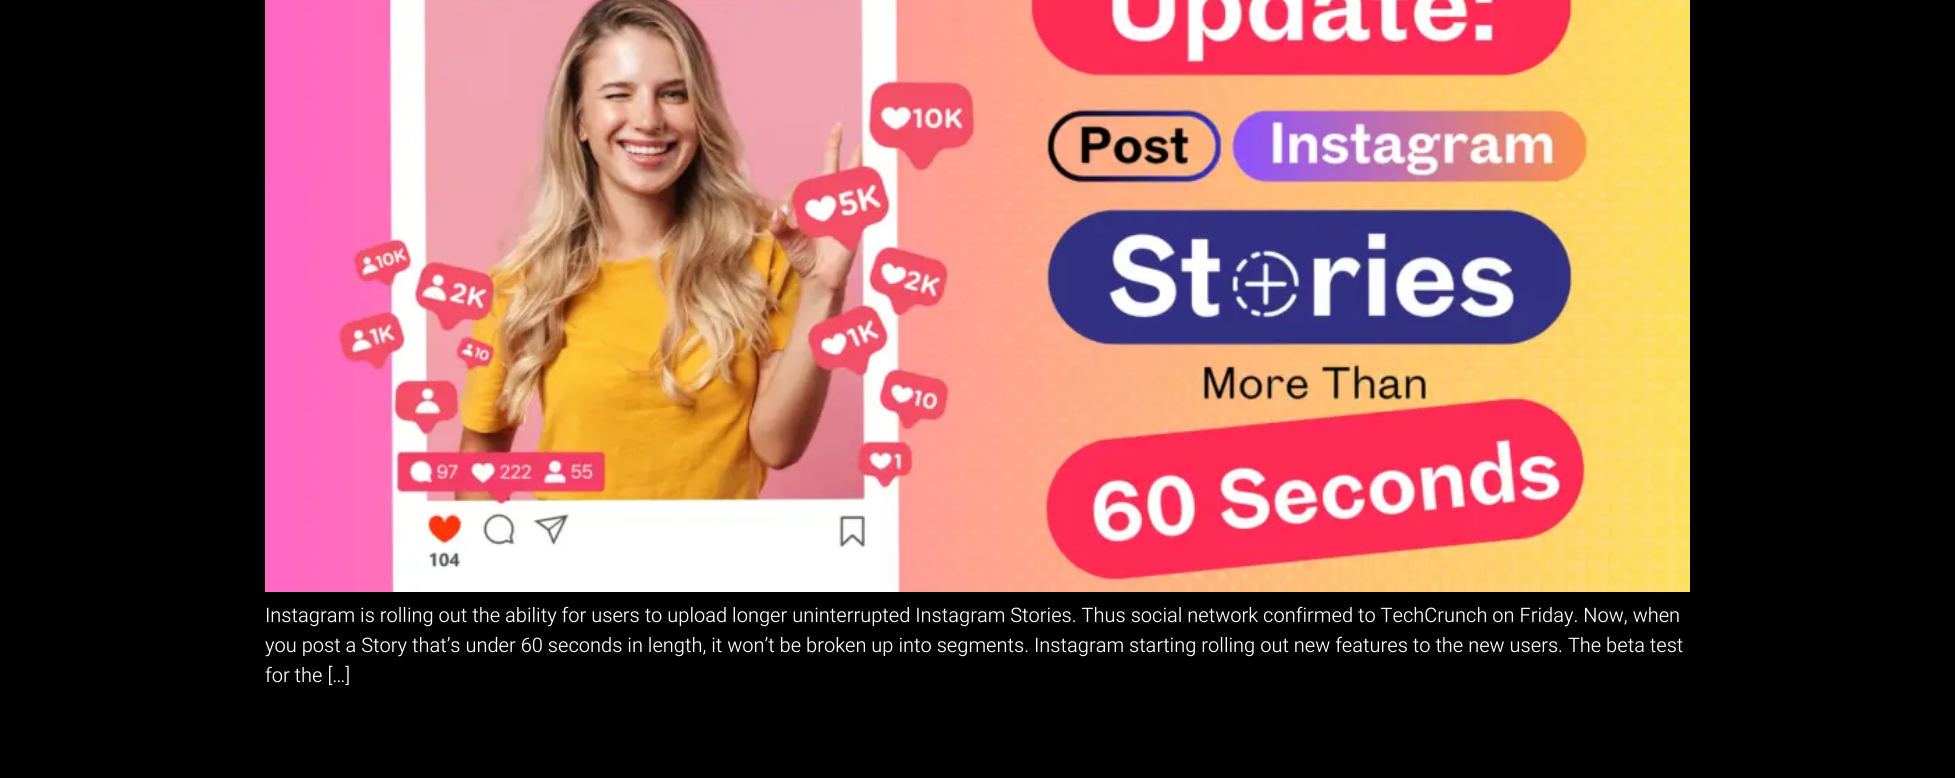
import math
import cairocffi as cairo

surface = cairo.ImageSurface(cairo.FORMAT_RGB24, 1955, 778)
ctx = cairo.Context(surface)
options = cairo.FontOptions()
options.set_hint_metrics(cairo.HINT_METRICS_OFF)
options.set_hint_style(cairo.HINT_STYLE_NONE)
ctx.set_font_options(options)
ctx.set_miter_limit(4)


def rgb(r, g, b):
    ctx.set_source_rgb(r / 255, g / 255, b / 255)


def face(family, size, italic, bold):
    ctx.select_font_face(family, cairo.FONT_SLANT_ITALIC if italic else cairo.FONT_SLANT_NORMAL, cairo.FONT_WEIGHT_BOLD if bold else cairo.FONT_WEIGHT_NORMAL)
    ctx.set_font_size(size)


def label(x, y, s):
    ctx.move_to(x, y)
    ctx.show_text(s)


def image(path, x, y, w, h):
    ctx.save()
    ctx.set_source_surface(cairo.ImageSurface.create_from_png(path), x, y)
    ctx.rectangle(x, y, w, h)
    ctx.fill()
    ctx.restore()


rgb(0, 0, 0)
ctx.paint()
image('image0.png', 265, 0, 1425, 592)
face('Heebo Light', 20, 0, 0)
rgb(255, 255, 255)
label(265, 622, 'Instagram is rolling out the ability for users to upload longer uninterrupted Instagram Stories. Thus social network confirmed to TechCrunch on Friday. Now, when')
label(265, 652, 'you post a Story that’s under 60 seconds in length, it won’t be broken up into segments. Instagram starting rolling out new features to the new users. The beta test')
label(265, 682, 'for the […]')
surface.write_to_png('render.png')
